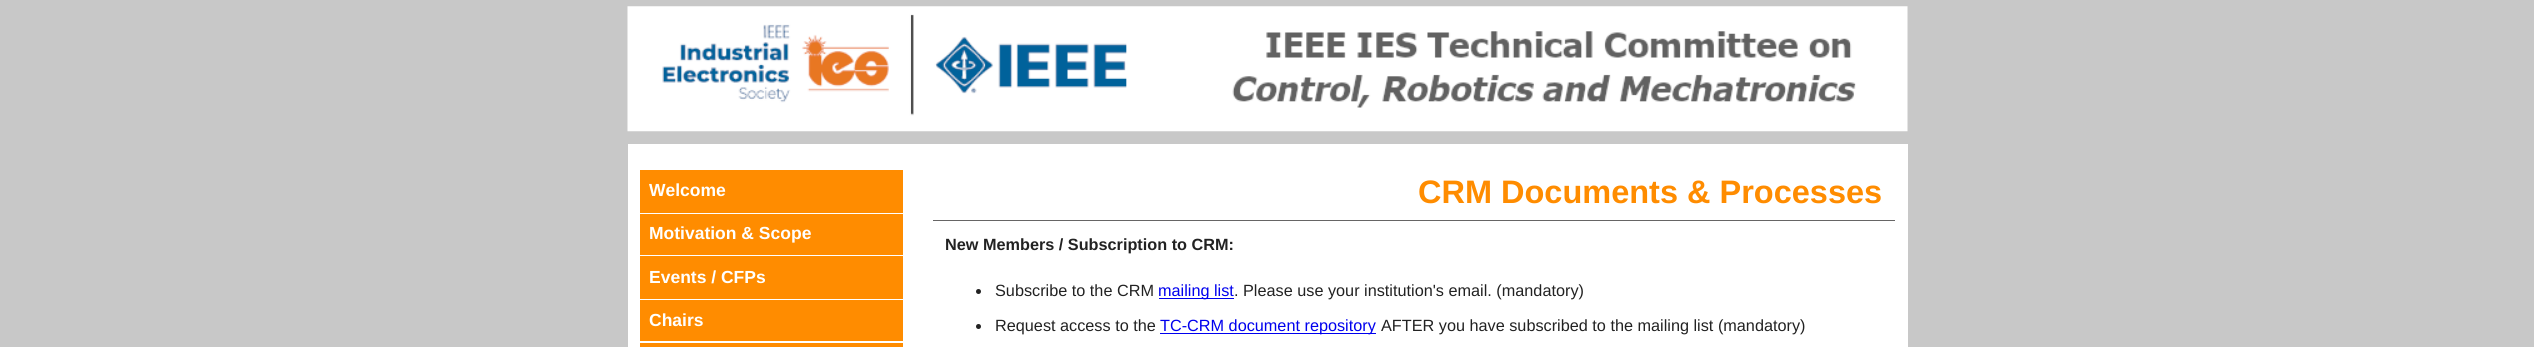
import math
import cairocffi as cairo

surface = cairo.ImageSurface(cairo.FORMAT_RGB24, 2534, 347)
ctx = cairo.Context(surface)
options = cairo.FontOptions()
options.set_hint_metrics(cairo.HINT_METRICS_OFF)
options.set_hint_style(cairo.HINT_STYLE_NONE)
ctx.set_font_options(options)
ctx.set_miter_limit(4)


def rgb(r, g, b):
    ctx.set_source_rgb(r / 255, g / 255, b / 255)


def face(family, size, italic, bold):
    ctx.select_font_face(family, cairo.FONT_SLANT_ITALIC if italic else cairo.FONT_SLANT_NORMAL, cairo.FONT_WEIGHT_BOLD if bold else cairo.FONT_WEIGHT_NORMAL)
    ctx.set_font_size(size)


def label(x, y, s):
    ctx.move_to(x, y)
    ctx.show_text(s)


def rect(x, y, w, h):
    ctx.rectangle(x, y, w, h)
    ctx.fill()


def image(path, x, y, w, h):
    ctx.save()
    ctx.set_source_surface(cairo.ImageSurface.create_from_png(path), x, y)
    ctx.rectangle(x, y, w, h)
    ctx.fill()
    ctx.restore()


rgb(200, 200, 200)
ctx.paint()
image('image0.png', 627, 6, 1281, 126)
rgb(255, 255, 255)
rect(628, 144, 1280, 203)
rgb(255, 140, 0)
rect(640, 170, 263, 43)
face('Liberation Sans', 17.5, 0, 1)
rgb(255, 255, 255)
label(649, 196, 'Welcome')
rgb(255, 140, 0)
rect(640, 214, 263, 41)
rgb(255, 255, 255)
label(649, 239, 'Motivation & Scope')
rgb(255, 140, 0)
rect(640, 256, 263, 43)
rgb(255, 255, 255)
label(649, 283, 'Events / CFPs')
rgb(255, 140, 0)
rect(640, 300, 263, 41)
rgb(255, 255, 255)
label(649, 326, 'Chairs')
rgb(255, 140, 0)
rect(640, 343, 263, 4)
rgb(102, 101, 101)
rect(933, 220, 962, 1)
face('Liberation Sans', 32.5, 0, 1)
rgb(255, 140, 0)
label(1418, 203, 'CRM Documents & Processes')
face('Liberation Sans', 16.25, 0, 1)
rgb(34, 34, 34)
label(945, 250, 'New Members / Subscription to CRM:')
ctx.new_path()
ctx.arc(978.5, 291.5, 2.5, 0, 2 * math.pi)
ctx.fill()
face('Liberation Sans', 16.25, 0, 0)
label(995, 296, 'Subscribe to the CRM')
rgb(0, 0, 238)
rect(1159, 298, 75, 1)
label(1158, 296, 'mailing list')
rgb(34, 34, 34)
label(1234, 296, '. Please use your institution\'s email. (mandatory)')
ctx.new_path()
ctx.arc(978.5, 326.5, 2.5, 0, 2 * math.pi)
ctx.fill()
label(995, 331, 'Request access to the')
rgb(0, 0, 238)
rect(1160, 333, 216, 1)
label(1160, 331, 'TC-CRM document repository')
rgb(34, 34, 34)
label(1381, 331, 'AFTER you have subscribed to the mailing list (mandatory)')
surface.write_to_png('render.png')
